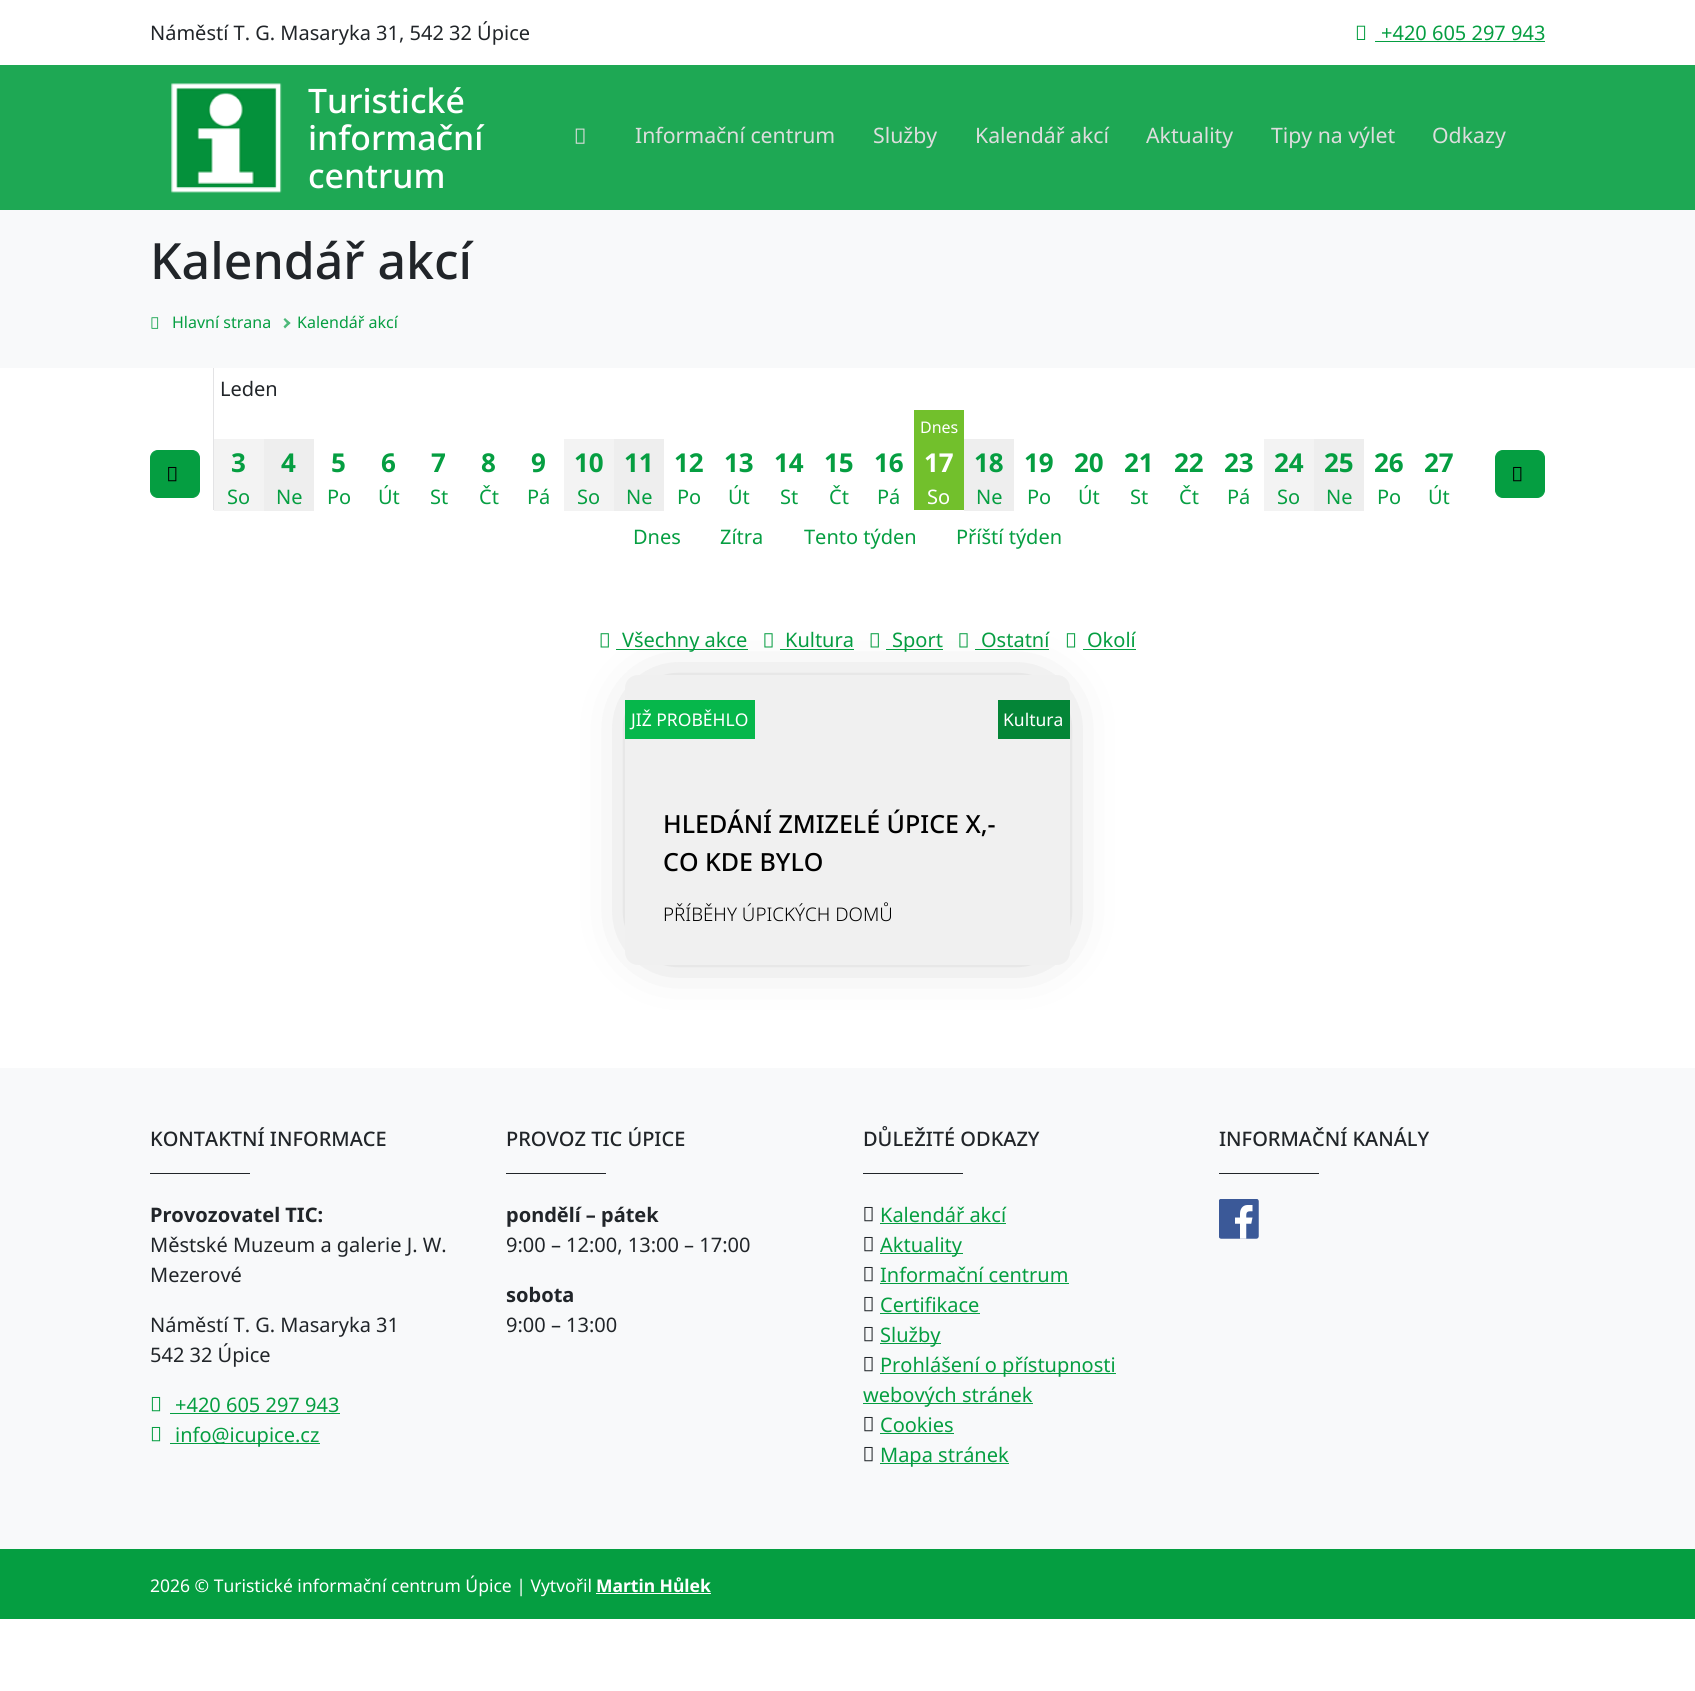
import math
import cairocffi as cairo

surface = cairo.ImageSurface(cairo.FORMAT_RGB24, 1695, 1691)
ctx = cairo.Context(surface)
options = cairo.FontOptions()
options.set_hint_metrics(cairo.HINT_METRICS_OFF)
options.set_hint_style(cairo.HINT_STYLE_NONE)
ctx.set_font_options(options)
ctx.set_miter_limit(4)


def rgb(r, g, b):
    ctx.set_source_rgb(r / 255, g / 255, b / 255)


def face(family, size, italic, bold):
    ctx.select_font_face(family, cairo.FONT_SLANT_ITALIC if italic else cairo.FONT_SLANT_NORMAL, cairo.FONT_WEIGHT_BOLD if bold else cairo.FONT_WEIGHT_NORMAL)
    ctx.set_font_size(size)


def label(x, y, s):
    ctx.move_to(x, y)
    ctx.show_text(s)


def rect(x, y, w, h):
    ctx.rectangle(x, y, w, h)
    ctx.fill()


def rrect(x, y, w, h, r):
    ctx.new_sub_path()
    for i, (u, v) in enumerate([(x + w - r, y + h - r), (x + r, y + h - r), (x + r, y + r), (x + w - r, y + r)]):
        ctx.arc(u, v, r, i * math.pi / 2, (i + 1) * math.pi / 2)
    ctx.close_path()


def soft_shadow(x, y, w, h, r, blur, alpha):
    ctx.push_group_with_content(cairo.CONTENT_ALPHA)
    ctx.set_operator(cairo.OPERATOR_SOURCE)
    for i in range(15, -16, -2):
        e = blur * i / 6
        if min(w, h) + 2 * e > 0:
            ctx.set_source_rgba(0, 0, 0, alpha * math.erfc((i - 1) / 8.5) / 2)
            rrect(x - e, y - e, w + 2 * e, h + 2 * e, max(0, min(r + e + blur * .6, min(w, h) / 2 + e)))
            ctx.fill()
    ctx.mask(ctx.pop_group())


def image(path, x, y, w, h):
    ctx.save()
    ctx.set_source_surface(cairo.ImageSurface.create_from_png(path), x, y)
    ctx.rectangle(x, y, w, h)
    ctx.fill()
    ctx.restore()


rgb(255, 255, 255)
ctx.paint()
face('Noto Sans', 20, 0, 0)
rgb(33, 37, 41)
label(150, 40, 'Náměstí T. G. Masaryka 31, 542 32 Úpice')
image('image0.png', 1356, 25, 10, 15)
rgb(5, 158, 65)
label(1381, 40, '+420 605 297 943')
rect(1375, 41, 170, 1)
rgb(30, 168, 84)
rect(0, 65, 1695, 145)
image('image1.png', 171, 83, 111, 110)
face('Noto Sans Medium', 33.75, 0, 0)
rgb(255, 255, 255)
label(308, 113, 'Turistické')
label(308, 150, 'informační')
label(308, 188, 'centrum')
image('image2.png', 575, 128, 10, 16)
face('Noto Sans', 21.25, 0, 0)
rgb(221, 221, 221)
label(635, 143, 'Informační centrum')
label(873, 143, 'Služby')
label(975, 143, 'Kalendář akcí')
label(1146, 143, 'Aktuality')
label(1271, 143, 'Tipy na výlet')
label(1432, 143, 'Odkazy')
rgb(248, 249, 250)
rect(0, 210, 1695, 158)
face('Noto Sans Medium', 50, 0, 0)
rgb(33, 37, 41)
label(150, 279, 'Kalendář akcí')
image('image3.png', 151, 317, 8, 12)
face('Noto Sans', 16, 0, 0)
rgb(5, 158, 65)
label(172, 328, 'Hlavní strana')
rgb(78, 185, 121)
ctx.new_path()
ctx.move_to(283.5, 319.5)
ctx.line_to(285, 318)
ctx.line_to(290.5, 323)
ctx.line_to(288.5, 325)
ctx.close_path()
ctx.fill()
ctx.new_path()
ctx.move_to(283.5, 326.5)
ctx.line_to(288.5, 321.5)
ctx.line_to(290.5, 323)
ctx.line_to(285, 328.5)
ctx.close_path()
ctx.fill()
rgb(5, 158, 65)
label(297, 328, 'Kalendář akcí')
rrect(150.5, 450.5, 49, 47, 7.5)
ctx.fill_preserve()
ctx.set_line_width(1)
ctx.stroke()
image('image4.png', 168, 466, 9, 16)
rgb(227, 227, 229)
rect(213, 368, 1, 142)
face('Noto Sans', 20, 0, 0)
rgb(33, 37, 41)
label(220, 396, 'Leden')
rgb(243, 243, 243)
rect(214, 439, 50, 72)
face('Noto Sans', 26, 0, 1)
rgb(5, 158, 65)
label(231, 472, '3')
face('Noto Sans', 20, 0, 0)
label(227, 504, 'So')
rgb(238, 238, 238)
rect(264, 439, 50, 72)
face('Noto Sans', 26, 0, 1)
rgb(5, 158, 65)
label(281, 472, '4')
face('Noto Sans', 20, 0, 0)
label(276, 504, 'Ne')
face('Noto Sans', 26, 0, 1)
label(331, 472, '5')
face('Noto Sans', 20, 0, 0)
label(327, 504, 'Po')
face('Noto Sans', 26, 0, 1)
label(381, 472, '6')
face('Noto Sans', 20, 0, 0)
label(378, 504, 'Út')
face('Noto Sans', 26, 0, 1)
label(431, 472, '7')
face('Noto Sans', 20, 0, 0)
label(430, 504, 'St')
face('Noto Sans', 26, 0, 1)
label(481, 472, '8')
face('Noto Sans', 20, 0, 0)
label(479, 504, 'Čt')
face('Noto Sans', 26, 0, 1)
label(531, 472, '9')
face('Noto Sans', 20, 0, 0)
label(527, 504, 'Pá')
rgb(243, 243, 243)
rect(564, 439, 50, 72)
face('Noto Sans', 26, 0, 1)
rgb(5, 158, 65)
label(574, 472, '10')
face('Noto Sans', 20, 0, 0)
label(577, 504, 'So')
rgb(238, 238, 238)
rect(614, 439, 50, 72)
face('Noto Sans', 26, 0, 1)
rgb(5, 158, 65)
label(624, 472, '11')
face('Noto Sans', 20, 0, 0)
label(626, 504, 'Ne')
face('Noto Sans', 26, 0, 1)
label(674, 472, '12')
face('Noto Sans', 20, 0, 0)
label(677, 504, 'Po')
face('Noto Sans', 26, 0, 1)
label(724, 472, '13')
face('Noto Sans', 20, 0, 0)
label(728, 504, 'Út')
face('Noto Sans', 26, 0, 1)
label(774, 472, '14')
face('Noto Sans', 20, 0, 0)
label(780, 504, 'St')
face('Noto Sans', 26, 0, 1)
label(824, 472, '15')
face('Noto Sans', 20, 0, 0)
label(829, 504, 'Čt')
face('Noto Sans', 26, 0, 1)
label(874, 472, '16')
face('Noto Sans', 20, 0, 0)
label(877, 504, 'Pá')
rgb(114, 192, 44)
rect(914, 410, 50, 100)
face('Noto Sans', 16, 0, 0)
rgb(255, 255, 255)
label(920, 433, 'Dnes')
face('Noto Sans', 26, 0, 1)
label(924, 472, '17')
face('Noto Sans', 20, 0, 0)
label(927, 504, 'So')
rgb(238, 238, 238)
rect(964, 439, 50, 72)
face('Noto Sans', 26, 0, 1)
rgb(5, 158, 65)
label(974, 472, '18')
face('Noto Sans', 20, 0, 0)
label(976, 504, 'Ne')
face('Noto Sans', 26, 0, 1)
label(1024, 472, '19')
face('Noto Sans', 20, 0, 0)
label(1027, 504, 'Po')
face('Noto Sans', 26, 0, 1)
label(1074, 472, '20')
face('Noto Sans', 20, 0, 0)
label(1078, 504, 'Út')
face('Noto Sans', 26, 0, 1)
label(1124, 472, '21')
face('Noto Sans', 20, 0, 0)
label(1130, 504, 'St')
face('Noto Sans', 26, 0, 1)
label(1174, 472, '22')
face('Noto Sans', 20, 0, 0)
label(1179, 504, 'Čt')
face('Noto Sans', 26, 0, 1)
label(1224, 472, '23')
face('Noto Sans', 20, 0, 0)
label(1227, 504, 'Pá')
rgb(243, 243, 243)
rect(1264, 439, 50, 72)
face('Noto Sans', 26, 0, 1)
rgb(5, 158, 65)
label(1274, 472, '24')
face('Noto Sans', 20, 0, 0)
label(1277, 504, 'So')
rgb(238, 238, 238)
rect(1314, 439, 50, 72)
face('Noto Sans', 26, 0, 1)
rgb(5, 158, 65)
label(1324, 472, '25')
face('Noto Sans', 20, 0, 0)
label(1326, 504, 'Ne')
face('Noto Sans', 26, 0, 1)
label(1374, 472, '26')
face('Noto Sans', 20, 0, 0)
label(1377, 504, 'Po')
face('Noto Sans', 26, 0, 1)
label(1424, 472, '27')
face('Noto Sans', 20, 0, 0)
label(1428, 504, 'Út')
rrect(1495.5, 450.5, 49, 47, 7.5)
ctx.fill_preserve()
ctx.stroke()
image('image4.png', 1513, 466, 9, 16)
label(633, 544, 'Dnes')
label(720, 544, 'Zítra')
label(804, 544, 'Tento týden')
label(956, 544, 'Příští týden')
image('image5.png', 600, 633, 9, 15)
rect(616, 649, 132, 1)
label(622, 647, 'Všechny akce')
image('image6.png', 764, 633, 9, 15)
label(785, 647, 'Kultura')
rect(780, 649, 74, 1)
image('image5.png', 870, 633, 9, 15)
rect(886, 649, 57, 1)
label(892, 647, 'Sport')
image('image6.png', 959, 633, 9, 15)
label(981, 647, 'Ostatní')
rect(975, 649, 74, 1)
image('image7.png', 1066, 633, 10, 15)
label(1087, 647, 'Okolí')
rect(1083, 649, 53, 1)
rgb(0, 0, 0)
soft_shadow(660, 710, 375, 220, 0, 32, 0.6)
rgb(240, 240, 240)
rrect(625, 675, 445, 290, 13)
ctx.fill()
rgb(6, 183, 75)
rect(625, 700, 130, 39)
face('Noto Sans', 17.5, 0, 0)
rgb(255, 255, 255)
label(631, 726, 'JIŽ PROBĚHLO')
rgb(4, 133, 55)
rect(998, 700, 72, 39)
rgb(255, 255, 255)
label(1003, 726, 'Kultura')
face('Noto Sans Medium', 25, 0, 0)
rgb(0, 0, 0)
label(663, 833, 'HLEDÁNÍ ZMIZELÉ ÚPICE X,-')
label(663, 871, 'CO KDE BYLO')
face('Noto Sans Light', 18.75, 0, 0)
label(663, 921, 'PŘÍBĚHY ÚPICKÝCH DOMŮ')
rgb(248, 249, 250)
rect(0, 1068, 1695, 481)
face('Noto Sans Medium', 20, 0, 0)
rgb(33, 37, 41)
label(150, 1146, 'KONTAKTNÍ INFORMACE')
rect(150, 1173, 100, 1)
face('Noto Sans', 20, 0, 1)
label(150, 1222, 'Provozovatel TIC:')
face('Noto Sans', 20, 0, 0)
label(150, 1252, 'Městské Muzeum a galerie J. W.')
label(150, 1282, 'Mezerové')
label(150, 1332, 'Náměstí T. G. Masaryka 31')
label(150, 1362, '542 32 Úpice')
image('image8.png', 151, 1396, 10, 16)
rgb(5, 158, 65)
label(175, 1412, '+420 605 297 943')
rect(170, 1413, 170, 1)
image('image8.png', 151, 1426, 10, 16)
rect(170, 1443, 150, 1)
label(175, 1442, 'info@icupice.cz')
face('Noto Sans Medium', 20, 0, 0)
rgb(33, 37, 41)
label(506, 1146, 'PROVOZ TIC ÚPICE')
rect(506, 1173, 100, 1)
face('Noto Sans', 20, 0, 1)
label(506, 1222, 'pondělí – pátek')
face('Noto Sans', 20, 0, 0)
label(506, 1252, '9:00 – 12:00, 13:00 – 17:00')
face('Noto Sans', 20, 0, 1)
label(506, 1302, 'sobota')
face('Noto Sans', 20, 0, 0)
label(506, 1332, '9:00 – 13:00')
face('Noto Sans Medium', 20, 0, 0)
label(863, 1146, 'DŮLEŽITÉ ODKAZY')
rect(863, 1173, 100, 1)
image('image9.png', 864, 1206, 9, 16)
face('Noto Sans', 20, 0, 0)
rgb(5, 158, 65)
label(880, 1222, 'Kalendář akcí')
rect(880, 1223, 126, 1)
image('image9.png', 864, 1236, 9, 16)
rect(880, 1253, 83, 1)
label(880, 1252, 'Aktuality')
image('image9.png', 864, 1266, 9, 16)
label(880, 1282, 'Informační centrum')
rect(880, 1283, 189, 1)
image('image9.png', 864, 1296, 9, 16)
label(880, 1312, 'Certifikace')
rect(880, 1313, 100, 1)
image('image9.png', 864, 1326, 9, 16)
rect(880, 1343, 61, 1)
label(880, 1342, 'Služby')
image('image9.png', 864, 1356, 9, 16)
rect(880, 1373, 236, 1)
label(880, 1372, 'Prohlášení o přístupnosti')
rect(863, 1403, 170, 1)
label(863, 1402, 'webových stránek')
image('image9.png', 864, 1416, 9, 16)
label(880, 1432, 'Cookies')
rect(880, 1433, 74, 1)
image('image9.png', 864, 1446, 9, 16)
rect(880, 1463, 129, 1)
label(880, 1462, 'Mapa stránek')
face('Noto Sans Medium', 20, 0, 0)
rgb(33, 37, 41)
label(1219, 1146, 'INFORMAČNÍ KANÁLY')
rect(1219, 1173, 100, 1)
image('image10.png', 1219, 1199, 40, 40)
rgb(5, 158, 65)
rect(0, 1549, 1695, 70)
face('Noto Sans', 17.5, 0, 0)
rgb(255, 255, 255)
label(150, 1592, '2026 © Turistické informační centrum Úpice | Vytvořil')
face('Noto Sans', 17.5, 0, 1)
label(596, 1592, 'Martin Hůlek')
rect(596, 1593, 115, 1)
surface.write_to_png('render.png')
